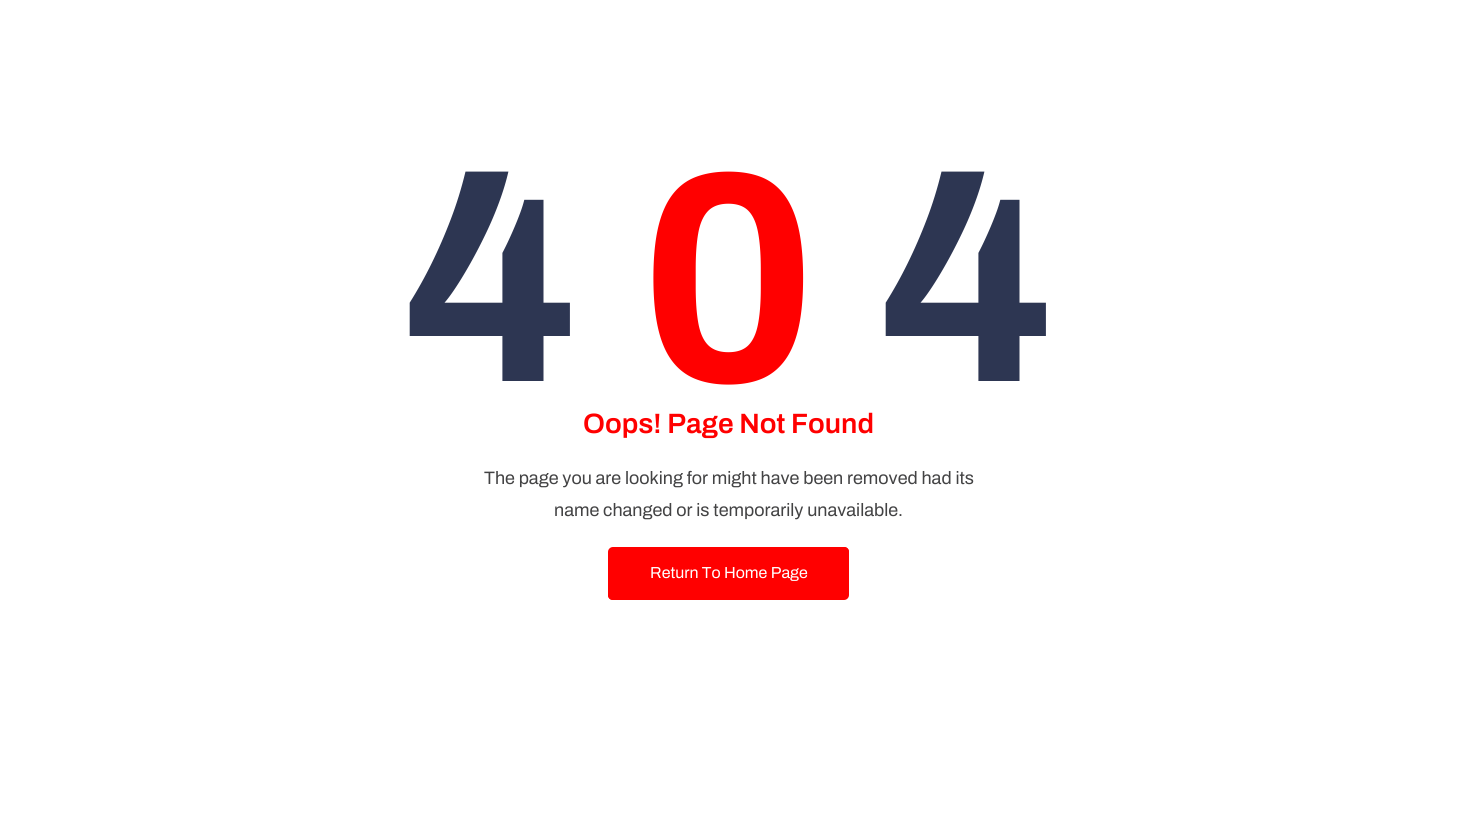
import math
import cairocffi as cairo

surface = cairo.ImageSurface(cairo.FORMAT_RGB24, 1457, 815)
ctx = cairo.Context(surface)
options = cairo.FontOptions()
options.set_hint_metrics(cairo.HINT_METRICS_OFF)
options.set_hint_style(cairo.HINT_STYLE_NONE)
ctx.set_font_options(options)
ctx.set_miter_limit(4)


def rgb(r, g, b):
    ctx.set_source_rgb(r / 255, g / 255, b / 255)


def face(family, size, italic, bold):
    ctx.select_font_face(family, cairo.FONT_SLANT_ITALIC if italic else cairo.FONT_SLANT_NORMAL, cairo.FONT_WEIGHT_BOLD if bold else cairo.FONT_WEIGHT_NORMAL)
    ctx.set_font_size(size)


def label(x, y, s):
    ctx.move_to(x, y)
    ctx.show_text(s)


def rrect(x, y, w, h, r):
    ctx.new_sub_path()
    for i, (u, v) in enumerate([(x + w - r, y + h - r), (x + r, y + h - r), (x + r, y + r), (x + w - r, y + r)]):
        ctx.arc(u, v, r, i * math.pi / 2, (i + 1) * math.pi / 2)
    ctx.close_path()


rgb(255, 255, 255)
ctx.paint()
face('Archivo', 300, 0, 1)
rgb(45, 54, 82)
label(401, 381, '4')
rgb(255, 0, 0)
label(639, 381, '0')
rgb(45, 54, 82)
label(877, 381, '4')
face('Archivo SemiBold', 28, 0, 0)
rgb(255, 0, 0)
label(583, 433, 'Oops! Page Not Found')
face('Archivo', 18, 0, 0)
rgb(67, 67, 68)
label(484, 484, 'The page you are looking for might have been removed had its')
label(554, 516, 'name changed or is temporarily unavailable.')
rgb(255, 0, 0)
rrect(608, 547, 241, 53, 5)
ctx.fill()
ctx.new_path()
ctx.move_to(729, 547)
ctx.line_to(844, 547)
ctx.curve_to(847, 547, 849, 549, 849, 552)
ctx.line_to(849, 573)
ctx.line_to(729, 573)
ctx.close_path()
ctx.fill()
ctx.new_path()
ctx.move_to(608, 573)
ctx.line_to(728, 573)
ctx.line_to(728, 600)
ctx.line_to(613, 600)
ctx.curve_to(610, 600, 608, 598, 608, 595)
ctx.close_path()
ctx.fill()
face('Archivo', 16, 0, 0)
rgb(255, 255, 255)
label(650, 578, 'Return To Home Page')
surface.write_to_png('render.png')
